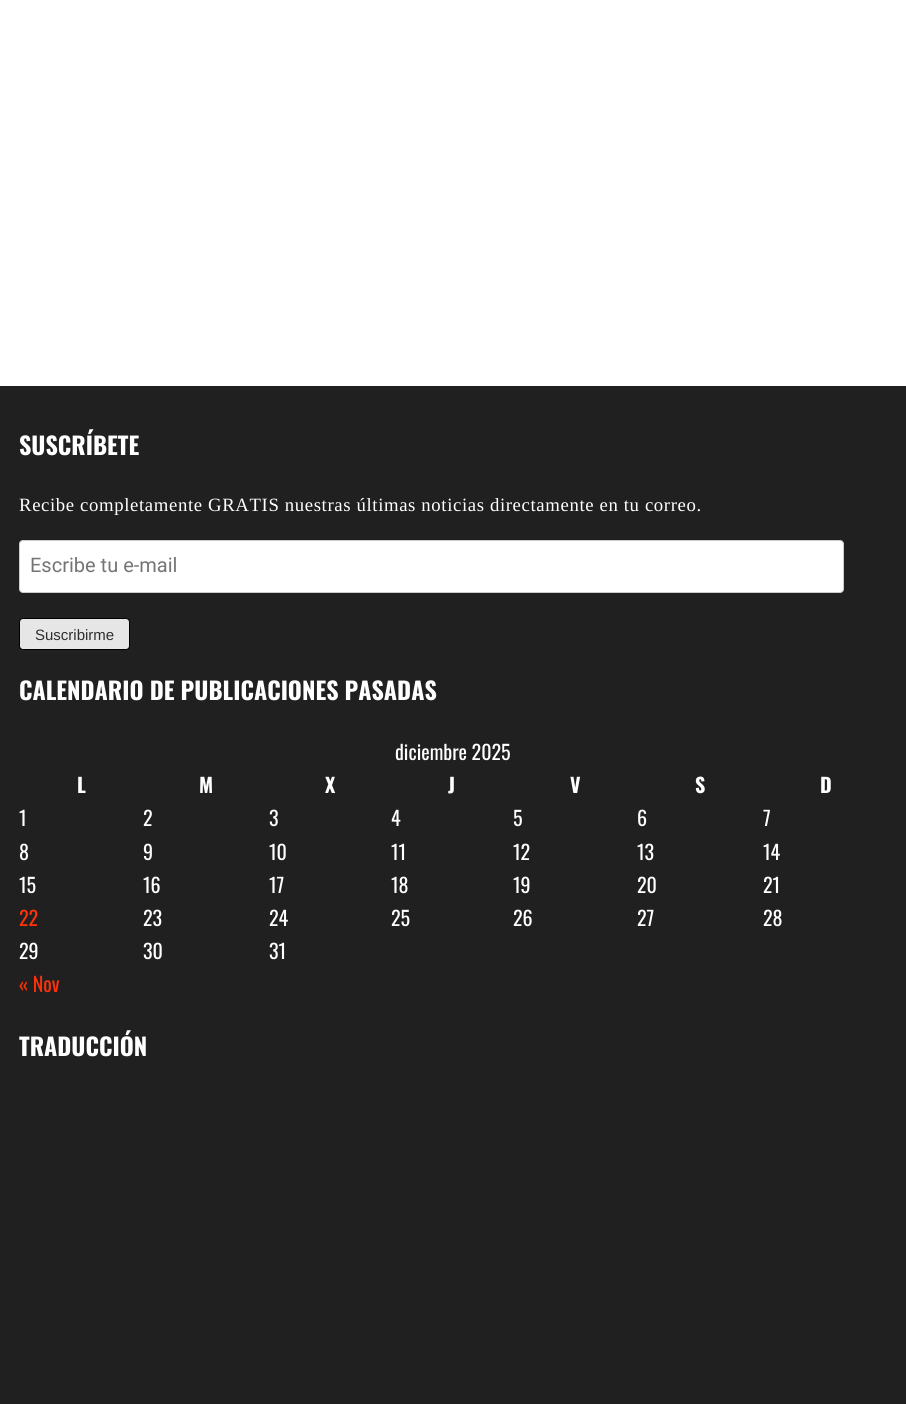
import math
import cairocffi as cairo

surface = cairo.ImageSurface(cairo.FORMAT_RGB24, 906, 1404)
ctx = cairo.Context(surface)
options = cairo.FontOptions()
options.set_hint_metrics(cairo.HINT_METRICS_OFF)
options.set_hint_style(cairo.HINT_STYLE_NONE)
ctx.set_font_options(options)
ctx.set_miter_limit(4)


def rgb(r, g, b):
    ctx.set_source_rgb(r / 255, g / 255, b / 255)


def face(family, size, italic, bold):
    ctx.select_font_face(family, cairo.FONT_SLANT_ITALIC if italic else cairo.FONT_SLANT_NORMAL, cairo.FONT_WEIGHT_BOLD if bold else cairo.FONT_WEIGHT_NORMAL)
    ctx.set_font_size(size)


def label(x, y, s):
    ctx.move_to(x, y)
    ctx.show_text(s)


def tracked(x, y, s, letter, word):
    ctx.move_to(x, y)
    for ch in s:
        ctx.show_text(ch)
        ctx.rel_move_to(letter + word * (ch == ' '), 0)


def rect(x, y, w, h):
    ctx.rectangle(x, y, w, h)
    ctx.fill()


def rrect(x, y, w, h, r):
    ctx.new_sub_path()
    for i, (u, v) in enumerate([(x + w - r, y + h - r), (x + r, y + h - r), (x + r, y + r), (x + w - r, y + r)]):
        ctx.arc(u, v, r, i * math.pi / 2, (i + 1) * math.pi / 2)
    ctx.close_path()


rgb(255, 255, 255)
ctx.paint()
rgb(32, 32, 32)
rect(0, 386, 906, 1018)
face('Oswald', 24, 0, 1)
rgb(255, 255, 255)
label(19, 455, 'SUSCRÍBETE')
face('Liberation Serif', 18.75, 0, 0)
tracked(19, 511, 'Recibe completamente GRATIS nuestras últimas noticias directamente en tu correo.', 0.62, 0)
rrect(19.5, 540.5, 824, 52, 3.5)
ctx.fill_preserve()
rgb(204, 204, 204)
ctx.set_line_width(1)
ctx.stroke()
face('Roboto', 20, 0, 0)
rgb(117, 117, 117)
label(30, 572, 'Escribe tu e-mail')
rgb(230, 230, 230)
rrect(19.5, 618.5, 110, 31, 3.5)
ctx.fill_preserve()
rgb(0, 0, 0)
ctx.stroke()
face('Liberation Sans', 15, 0, 0)
rgb(46, 46, 46)
label(35, 640, 'Suscribirme')
face('Oswald', 24, 0, 1)
rgb(255, 255, 255)
label(19, 700, 'CALENDARIO DE PUBLICACIONES PASADAS')
face('Oswald', 20, 0, 0)
label(395, 760, 'diciembre 2025')
face('Oswald', 20, 0, 1)
label(77, 793, 'L')
label(199, 793, 'M')
label(325, 793, 'X')
label(448, 793, 'J')
label(570, 793, 'V')
label(695, 793, 'S')
label(820, 793, 'D')
face('Oswald', 20, 0, 0)
label(19, 826, '1')
label(143, 826, '2')
label(269, 826, '3')
label(391, 826, '4')
label(513, 826, '5')
label(637, 826, '6')
label(763, 826, '7')
label(19, 860, '8')
label(143, 860, '9')
label(269, 860, '10')
label(391, 860, '11')
label(513, 860, '12')
label(637, 860, '13')
label(763, 860, '14')
label(19, 893, '15')
label(143, 893, '16')
label(269, 893, '17')
label(391, 893, '18')
label(513, 893, '19')
label(637, 893, '20')
label(763, 893, '21')
rgb(255, 50, 9)
label(19, 926, '22')
rgb(255, 255, 255)
label(143, 926, '23')
label(269, 926, '24')
label(391, 926, '25')
label(513, 926, '26')
label(637, 926, '27')
label(763, 926, '28')
label(19, 959, '29')
label(143, 959, '30')
label(269, 959, '31')
rgb(255, 50, 9)
label(19, 992, '« Nov')
face('Oswald', 24, 0, 1)
rgb(255, 255, 255)
label(19, 1056, 'TRADUCCIÓN')
surface.write_to_png('render.png')
